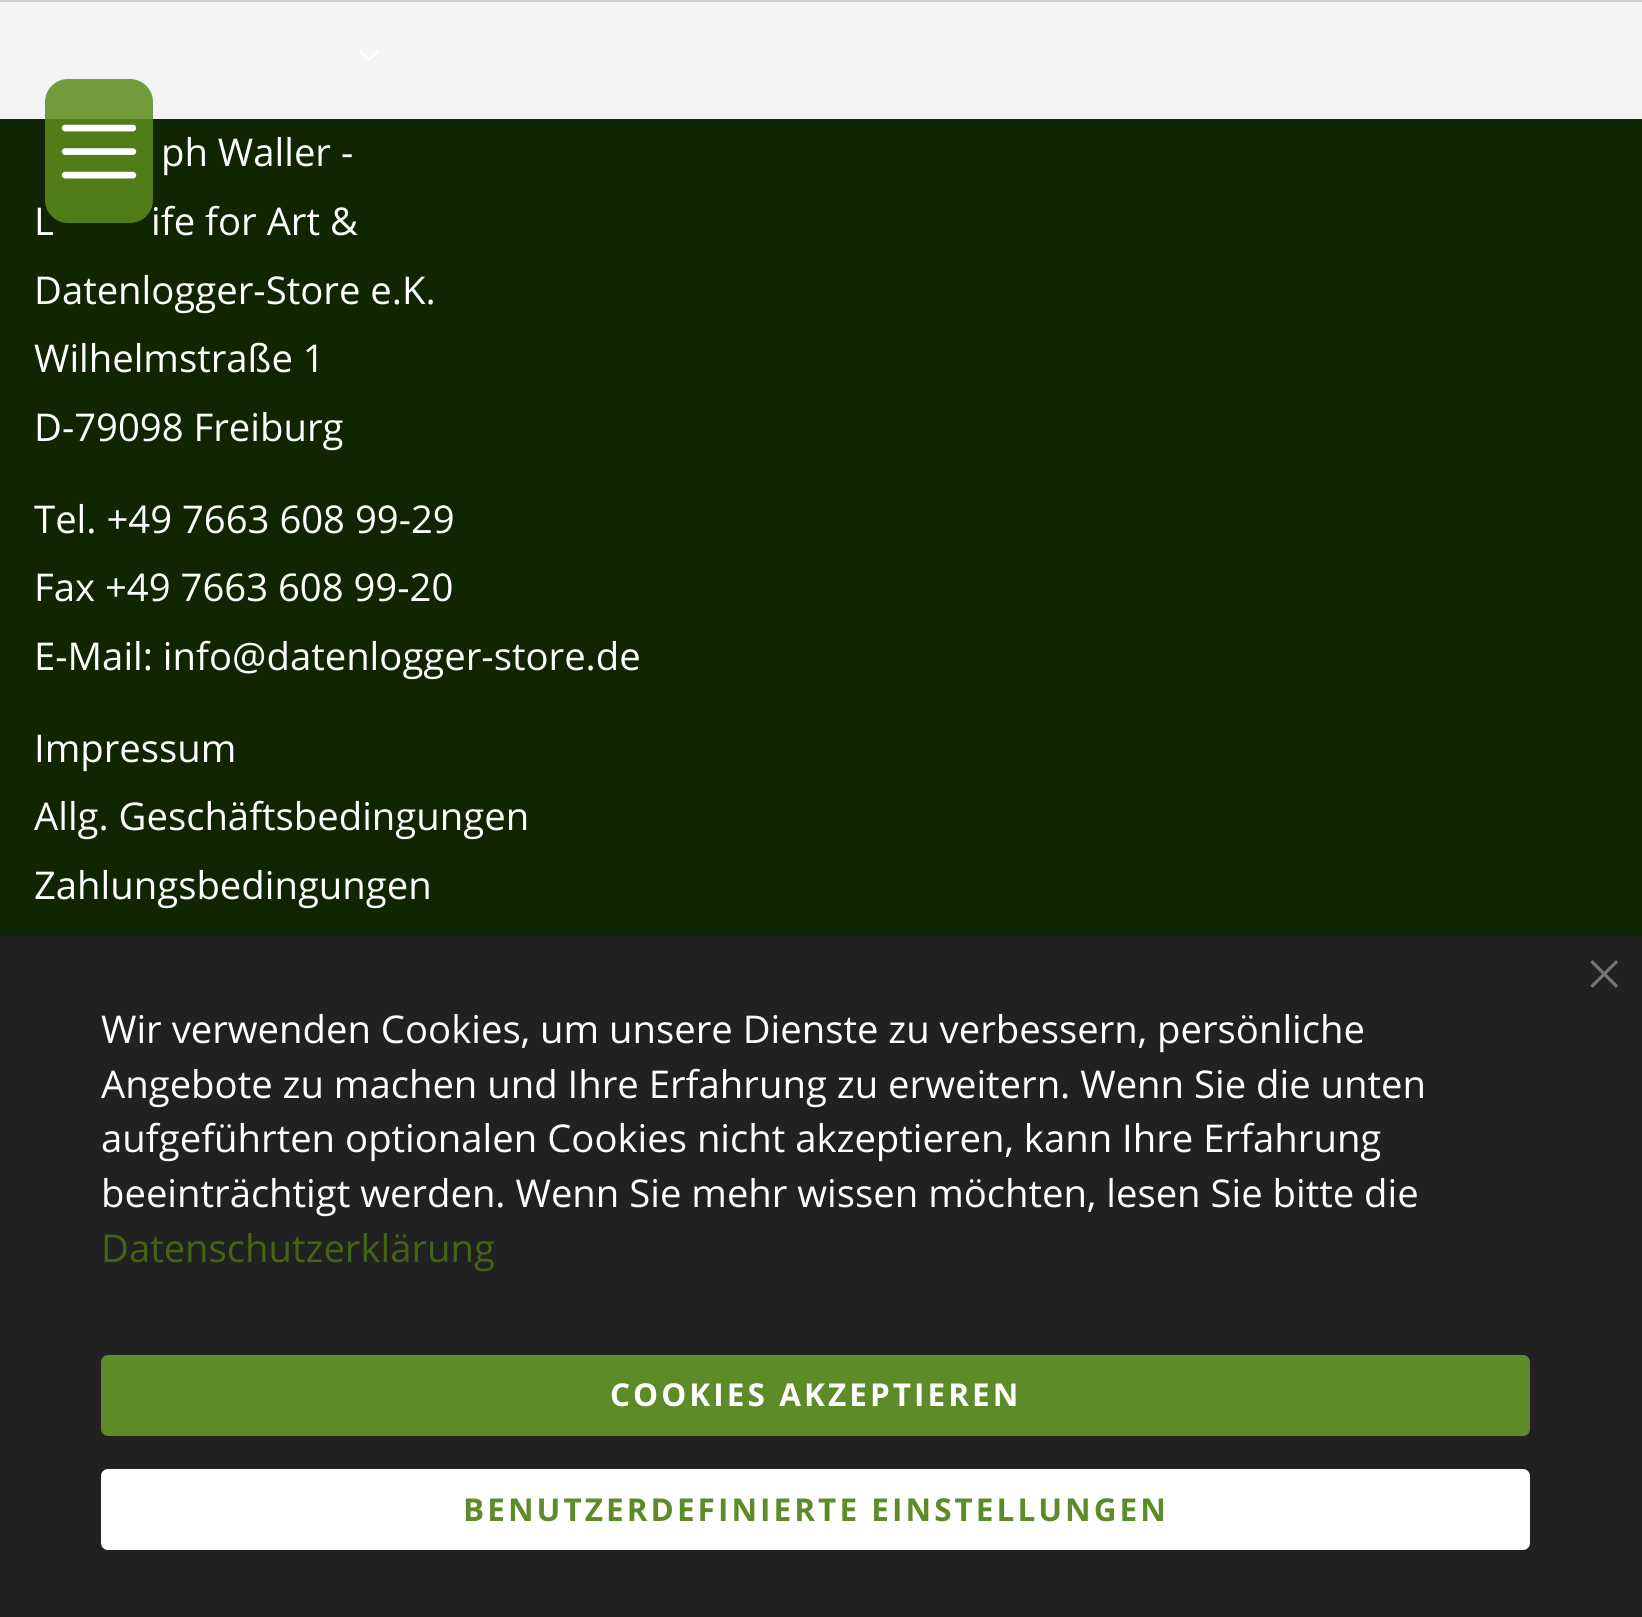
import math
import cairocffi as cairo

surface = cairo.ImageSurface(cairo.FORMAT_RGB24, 1642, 1617)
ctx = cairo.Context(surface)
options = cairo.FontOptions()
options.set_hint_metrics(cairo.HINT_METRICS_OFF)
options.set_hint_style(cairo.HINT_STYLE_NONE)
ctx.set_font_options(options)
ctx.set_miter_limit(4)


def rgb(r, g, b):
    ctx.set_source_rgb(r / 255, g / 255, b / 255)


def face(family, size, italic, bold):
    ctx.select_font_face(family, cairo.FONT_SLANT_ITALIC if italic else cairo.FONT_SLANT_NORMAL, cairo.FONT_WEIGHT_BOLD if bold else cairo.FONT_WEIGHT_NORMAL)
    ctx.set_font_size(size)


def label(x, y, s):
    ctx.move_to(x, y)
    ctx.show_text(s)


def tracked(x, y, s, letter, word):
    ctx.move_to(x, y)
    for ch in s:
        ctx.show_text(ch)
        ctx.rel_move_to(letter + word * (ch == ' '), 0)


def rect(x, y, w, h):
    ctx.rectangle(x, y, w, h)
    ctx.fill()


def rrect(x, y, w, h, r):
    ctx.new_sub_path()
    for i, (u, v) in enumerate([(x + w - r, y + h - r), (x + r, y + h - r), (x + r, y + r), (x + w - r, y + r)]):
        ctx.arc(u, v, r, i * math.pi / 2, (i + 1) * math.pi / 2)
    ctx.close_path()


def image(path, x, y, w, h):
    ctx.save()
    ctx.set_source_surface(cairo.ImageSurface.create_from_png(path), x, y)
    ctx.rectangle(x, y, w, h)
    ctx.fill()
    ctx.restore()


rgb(16, 37, 1)
ctx.paint()
rgb(244, 244, 244)
rect(0, 2, 1642, 117)
face('Open Sans', 38.25, 0, 0)
rgb(255, 255, 255)
label(34, 235, 'L')
ctx.set_source_rgba(0.361, 0.549, 0.114, 0.85)
rrect(45, 79, 108, 144, 23)
ctx.fill()
image('image0.png', 61, 124, 76, 55)
rgb(206, 206, 206)
rect(0, 0, 1642, 2)
rgb(255, 255, 255)
ctx.new_path()
ctx.move_to(369, 58)
ctx.line_to(360, 49.5)
ctx.line_to(358.5, 51.5)
ctx.line_to(369, 61.5)
ctx.line_to(379.5, 51)
ctx.line_to(378, 49.5)
ctx.close_path()
ctx.fill()
label(161, 166, 'ph Waller -')
label(151, 235, 'ife for Art &')
label(34, 304, 'Datenlogger-Store e.K.')
label(34, 372, 'Wilhelmstraße 1')
label(34, 441, 'D-79098 Freiburg')
label(34, 533, 'Tel. +49 7663 608 99-29')
label(34, 601, 'Fax +49 7663 608 99-20')
label(34, 670, 'E-Mail: info@datenlogger-store.de')
label(34, 762, 'Impressum')
label(34, 830, 'Allg. Geschäftsbedingungen')
label(34, 899, 'Zahlungsbedingungen')
rgb(33, 33, 33)
rect(0, 936, 1642, 681)
image('image1.png', 1590, 960, 28, 28)
rgb(255, 255, 255)
label(101, 1043, 'Wir verwenden Cookies, um unsere Dienste zu verbessern, persönliche')
label(101, 1098, 'Angebote zu machen und Ihre Erfahrung zu erweitern. Wenn Sie die unten')
label(101, 1152, 'aufgeführten optionalen Cookies nicht akzeptieren, kann Ihre Erfahrung')
label(101, 1207, 'beeinträchtigt werden. Wenn Sie mehr wissen möchten, lesen Sie bitte die')
rgb(68, 100, 19)
label(101, 1262, 'Datenschutzerklärung')
rgb(93, 139, 39)
rrect(101, 1355, 1429, 81, 7)
ctx.fill()
face('Open Sans', 31.5, 0, 1)
rgb(255, 255, 255)
tracked(610, 1406, 'COOKIES AKZEPTIEREN', 3.05, 0)
rrect(101, 1469, 1429, 81, 7)
ctx.fill()
rgb(93, 139, 39)
tracked(463, 1521, 'BENUTZERDEFINIERTE EINSTELLUNGEN', 3.05, 0)
surface.write_to_png('render.png')
